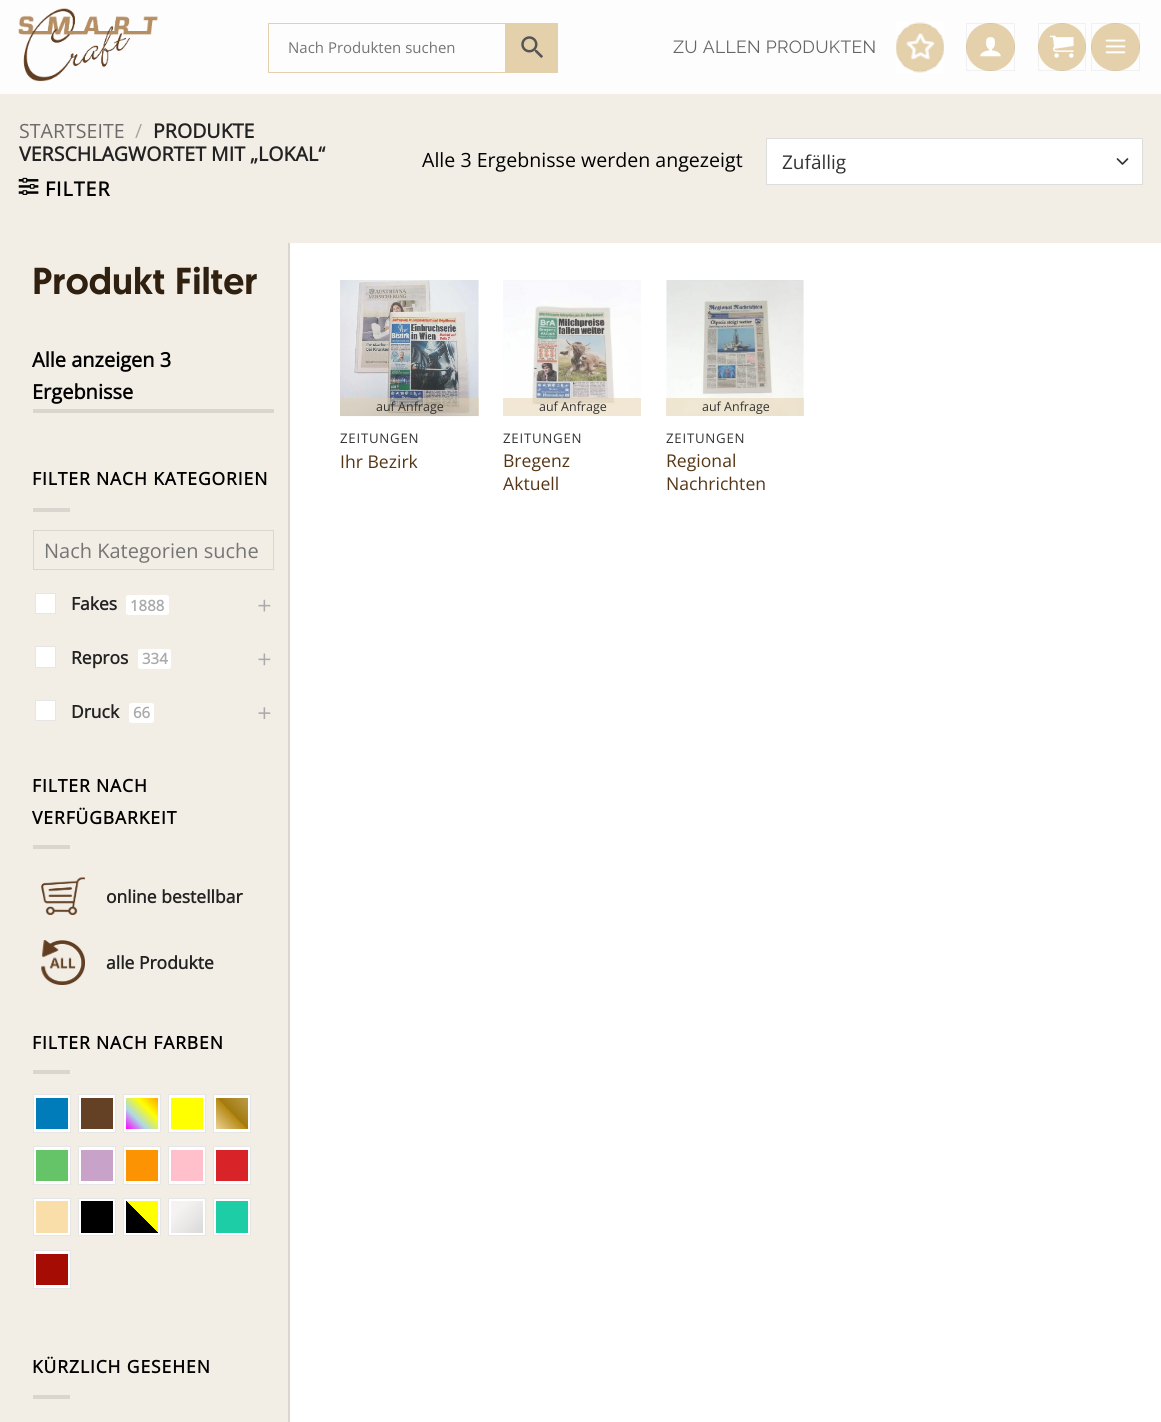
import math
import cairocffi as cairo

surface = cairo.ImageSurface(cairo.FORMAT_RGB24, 1161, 1422)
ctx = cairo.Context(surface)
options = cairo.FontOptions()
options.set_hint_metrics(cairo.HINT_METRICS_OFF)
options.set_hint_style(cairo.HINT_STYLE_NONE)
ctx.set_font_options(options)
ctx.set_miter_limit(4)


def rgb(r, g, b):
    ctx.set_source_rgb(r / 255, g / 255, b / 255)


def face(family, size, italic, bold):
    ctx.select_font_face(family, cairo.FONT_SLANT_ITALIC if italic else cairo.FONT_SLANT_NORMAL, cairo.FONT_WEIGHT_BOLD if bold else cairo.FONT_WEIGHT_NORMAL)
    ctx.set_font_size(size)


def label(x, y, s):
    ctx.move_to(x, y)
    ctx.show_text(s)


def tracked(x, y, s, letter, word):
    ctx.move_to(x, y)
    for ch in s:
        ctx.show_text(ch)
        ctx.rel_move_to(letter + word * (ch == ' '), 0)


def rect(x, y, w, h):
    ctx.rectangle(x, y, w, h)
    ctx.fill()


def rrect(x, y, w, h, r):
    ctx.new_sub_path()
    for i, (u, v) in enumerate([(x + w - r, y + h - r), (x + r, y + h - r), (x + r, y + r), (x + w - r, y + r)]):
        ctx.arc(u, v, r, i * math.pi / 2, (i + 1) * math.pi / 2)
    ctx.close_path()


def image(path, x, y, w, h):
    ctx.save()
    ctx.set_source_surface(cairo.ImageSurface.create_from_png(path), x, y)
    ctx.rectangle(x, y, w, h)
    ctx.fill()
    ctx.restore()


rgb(242, 238, 230)
ctx.paint()
rgb(254, 253, 253)
rect(0, 0, 1161, 94)
image('image0.png', 18, 8, 140, 74)
ctx.rectangle(268.5, 23.5, 237, 49)
rgb(228, 209, 171)
ctx.set_line_width(1)
ctx.stroke()
face('Open Sans', 15, 0, 0)
rgb(117, 117, 117)
label(288, 53, 'Nach Produkten suchen')
rgb(228, 209, 171)
rect(506, 23, 52, 50)
image('image1.png', 521, 36, 22, 22)
face('Raleway Thin', 17.6, 0, 0)
rgb(101, 101, 101)
tracked(673, 53, 'ZU ALLEN PRODUKTEN', 0.3, 0)
image('image2.png', 896, 22, 48, 51)
rgb(228, 209, 171)
rrect(966, 23, 49, 48, 24)
ctx.fill()
ctx.rectangle(966.5, 23.5, 48, 47)
ctx.set_source_rgba(0, 0, 0, 0.05)
ctx.stroke()
image('image3.png', 980, 37, 21, 20)
rgb(228, 209, 171)
ctx.arc(1062, 47, 24, 0, 2 * math.pi)
ctx.fill()
ctx.rectangle(1038.5, 23.5, 47, 47)
ctx.set_source_rgba(0, 0, 0, 0.05)
ctx.stroke()
image('image4.png', 1050, 35, 24, 23)
rgb(228, 209, 171)
rrect(1091, 23, 49, 48, 24)
ctx.fill()
ctx.rectangle(1091.5, 23.5, 48, 47)
ctx.set_source_rgba(0, 0, 0, 0.05)
ctx.stroke()
image('image5.png', 1105, 39, 21, 15)
face('Open Sans', 19.6, 0, 0)
rgb(108, 107, 105)
label(19, 138, 'STARTSEITE')
rgb(169, 167, 161)
label(135, 138, '/')
face('Open Sans', 19.6, 0, 1)
rgb(34, 34, 34)
label(153, 138, 'PRODUKTE')
label(19, 161, 'VERSCHLAGWORTET MIT „LOKAL“')
image('image6.png', 18, 177, 21, 18)
rgb(0, 0, 0)
tracked(45, 196, 'FILTER', 1, 0)
face('Open Sans', 19.6, 0, 0)
label(422, 167, 'Alle 3 Ergebnisse werden angezeigt')
rgb(255, 255, 255)
rect(767, 139, 375, 45)
ctx.new_path()
ctx.move_to(1117.5, 159)
ctx.line_to(1122.5, 164)
ctx.line_to(1127.5, 159)
rgb(51, 51, 51)
ctx.set_line_width(1.7)
ctx.set_line_cap(cairo.LINE_CAP_ROUND)
ctx.set_line_join(cairo.LINE_JOIN_ROUND)
ctx.stroke()
ctx.rectangle(766.5, 138.5, 376, 46)
rgb(221, 221, 221)
ctx.set_line_width(1)
ctx.set_line_cap(cairo.LINE_CAP_BUTT)
ctx.set_line_join(cairo.LINE_JOIN_MITER)
ctx.stroke()
face('Open Sans', 19, 0, 0)
rgb(51, 51, 51)
label(782, 169, 'Zufällig')
rgb(218, 214, 207)
rect(288, 243, 2, 1179)
face('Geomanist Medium', 37.5, 0, 0)
rgb(48, 32, 15)
label(32, 294, 'Produkt Filter')
rgb(218, 214, 207)
rect(33, 409, 241, 4)
face('Open Sans', 20, 0, 1)
rgb(0, 0, 0)
label(32, 367, 'Alle anzeigen 3')
label(32, 399, 'Ergebnisse')
face('Open Sans', 17.5, 0, 1)
tracked(32, 485, 'FILTER NACH KATEGORIEN', 0.9, 0)
rgb(218, 214, 207)
rect(33, 508, 37, 4)
ctx.rectangle(33.5, 530.5, 240, 39)
ctx.stroke()
face('Open Sans', 20, 0, 0)
rgb(117, 117, 117)
label(44, 558, 'Nach Kategorien suche')
rgb(255, 255, 255)
ctx.rectangle(35.5, 593.5, 20, 20)
ctx.fill_preserve()
rgb(230, 230, 230)
ctx.stroke()
face('Open Sans', 17.5, 0, 1)
rgb(34, 34, 34)
label(71, 610, 'Fakes')
rgb(255, 255, 255)
rrect(126, 595, 43, 20, 2.5)
ctx.fill()
face('Open Sans', 15, 0, 1)
rgb(170, 170, 170)
label(130, 611, '1888')
image('image7.png', 258, 599, 13, 13)
rgb(255, 255, 255)
ctx.rectangle(35.5, 646.5, 20, 21)
ctx.fill_preserve()
rgb(230, 230, 230)
ctx.stroke()
face('Open Sans', 17.5, 0, 1)
rgb(34, 34, 34)
label(71, 664, 'Repros')
rgb(255, 255, 255)
rrect(138, 649, 33, 20, 2.5)
ctx.fill()
face('Open Sans', 15, 0, 1)
rgb(170, 170, 170)
label(142, 664, '334')
image('image8.png', 258, 653, 13, 13)
rgb(255, 255, 255)
ctx.rectangle(35.5, 700.5, 20, 20)
ctx.fill_preserve()
rgb(230, 230, 230)
ctx.stroke()
face('Open Sans', 17.5, 0, 1)
rgb(34, 34, 34)
label(71, 718, 'Druck')
rgb(255, 255, 255)
rrect(129, 703, 25, 20, 2.5)
ctx.fill()
face('Open Sans', 15, 0, 1)
rgb(170, 170, 170)
label(133, 718, '66')
image('image9.png', 258, 707, 13, 12)
face('Open Sans', 17.5, 0, 1)
rgb(0, 0, 0)
tracked(32, 792, 'FILTER NACH', 0.9, 0)
tracked(32, 824, 'VERFÜGBARKEIT', 0.9, 0)
rgb(218, 214, 207)
rect(33, 845, 37, 4)
image('image10.png', 41, 877, 44, 38)
rgb(34, 34, 34)
label(106, 903, 'online bestellbar')
image('image11.png', 41, 940, 44, 45)
label(106, 969, 'alle Produkte')
rgb(0, 0, 0)
tracked(32, 1049, 'FILTER NACH FARBEN', 0.9, 0)
rgb(218, 214, 207)
rect(33, 1070, 37, 4)
rgb(255, 255, 255)
ctx.rectangle(33.5, 1094.5, 37, 38)
ctx.fill_preserve()
rgb(230, 230, 230)
ctx.stroke()
rgb(0, 124, 186)
rect(36, 1098, 32, 31)
rgb(255, 255, 255)
ctx.rectangle(78.5, 1094.5, 37, 38)
ctx.fill_preserve()
rgb(230, 230, 230)
ctx.stroke()
rgb(100, 65, 37)
rect(81, 1098, 32, 31)
rgb(255, 255, 255)
ctx.rectangle(123.5, 1094.5, 37, 38)
ctx.fill_preserve()
rgb(230, 230, 230)
ctx.stroke()
gradient = cairo.LinearGradient(158, 1098, 126, 1129)
gradient.add_color_stop_rgba(0, 1, 0.647, 0, 1)
gradient.add_color_stop_rgba(0.33, 1, 1, 0, 1)
gradient.add_color_stop_rgba(0.67, 0.678, 0.847, 0.902, 1)
gradient.add_color_stop_rgba(1, 1, 0, 1, 1)
ctx.set_source(gradient)
rect(126, 1098, 32, 31)
rgb(255, 255, 255)
ctx.rectangle(168.5, 1094.5, 37, 38)
ctx.fill_preserve()
rgb(230, 230, 230)
ctx.stroke()
rgb(255, 255, 0)
rect(171, 1098, 32, 31)
rgb(255, 255, 255)
ctx.rectangle(213.5, 1094.5, 37, 38)
ctx.fill_preserve()
rgb(230, 230, 230)
ctx.stroke()
gradient = cairo.LinearGradient(216, 1129, 248, 1098)
gradient.add_color_stop_rgba(0, 0.922, 0.82, 0.592, 1)
gradient.add_color_stop_rgba(0.5, 0.706, 0.533, 0.067, 1)
gradient.add_color_stop_rgba(0.51, 0.635, 0.475, 0.051, 1)
gradient.add_color_stop_rgba(1, 0.733, 0.608, 0.286, 1)
ctx.set_source(gradient)
rect(216, 1098, 32, 31)
rgb(255, 255, 255)
ctx.rectangle(33.5, 1146.5, 37, 38)
ctx.fill_preserve()
rgb(230, 230, 230)
ctx.stroke()
rgb(101, 195, 104)
rect(36, 1150, 32, 31)
rgb(255, 255, 255)
ctx.rectangle(78.5, 1146.5, 37, 38)
ctx.fill_preserve()
rgb(230, 230, 230)
ctx.stroke()
rgb(200, 162, 200)
rect(81, 1150, 32, 31)
rgb(255, 255, 255)
ctx.rectangle(123.5, 1146.5, 37, 38)
ctx.fill_preserve()
rgb(230, 230, 230)
ctx.stroke()
rgb(252, 147, 3)
rect(126, 1150, 32, 31)
rgb(255, 255, 255)
ctx.rectangle(168.5, 1146.5, 37, 38)
ctx.fill_preserve()
rgb(230, 230, 230)
ctx.stroke()
rgb(255, 192, 203)
rect(171, 1150, 32, 31)
rgb(255, 255, 255)
ctx.rectangle(213.5, 1146.5, 37, 38)
ctx.fill_preserve()
rgb(230, 230, 230)
ctx.stroke()
rgb(216, 36, 41)
rect(216, 1150, 32, 31)
rgb(255, 255, 255)
ctx.rectangle(33.5, 1198.5, 37, 37)
ctx.fill_preserve()
rgb(230, 230, 230)
ctx.stroke()
rgb(250, 222, 170)
rect(36, 1201, 32, 32)
rgb(255, 255, 255)
ctx.rectangle(78.5, 1198.5, 37, 37)
ctx.fill_preserve()
rgb(230, 230, 230)
ctx.stroke()
rgb(0, 0, 0)
rect(81, 1201, 32, 32)
rgb(255, 255, 255)
ctx.rectangle(123.5, 1198.5, 37, 37)
ctx.fill_preserve()
rgb(230, 230, 230)
ctx.stroke()
gradient = cairo.LinearGradient(126, 1233, 158, 1201)
gradient.add_color_stop_rgba(0, 0, 0, 0, 1)
gradient.add_color_stop_rgba(0.5, 0, 0, 0, 1)
gradient.add_color_stop_rgba(0.51, 1, 1, 0, 1)
gradient.add_color_stop_rgba(1, 1, 1, 0, 1)
ctx.set_source(gradient)
rect(126, 1201, 32, 32)
rgb(255, 255, 255)
ctx.rectangle(168.5, 1198.5, 37, 37)
ctx.fill_preserve()
rgb(230, 230, 230)
ctx.stroke()
gradient = cairo.LinearGradient(203, 1233, 171, 1201)
gradient.add_color_stop_rgba(0, 0.851, 0.851, 0.851, 1)
gradient.add_color_stop_rgba(0.74, 0.965, 0.949, 0.949, 1)
ctx.set_source(gradient)
rect(171, 1201, 32, 32)
rgb(255, 255, 255)
ctx.rectangle(213.5, 1198.5, 37, 37)
ctx.fill_preserve()
rgb(230, 230, 230)
ctx.stroke()
rgb(28, 205, 165)
rect(216, 1201, 32, 32)
rgb(255, 255, 255)
ctx.rectangle(33.5, 1250.5, 37, 38)
ctx.fill_preserve()
rgb(230, 230, 230)
ctx.stroke()
rgb(164, 12, 4)
rect(36, 1254, 32, 31)
rgb(0, 0, 0)
tracked(32, 1373, 'KÜRZLICH GESEHEN', 0.9, 0)
rgb(218, 214, 207)
rect(33, 1395, 37, 4)
rgb(255, 255, 255)
rect(290, 243, 871, 1179)
image('image12.png', 340, 280, 139, 137)
ctx.set_source_rgba(0.894, 0.82, 0.671, 0.5)
rect(340, 398, 139, 18)
face('Open Sans', 12.5, 0, 0)
rgb(51, 51, 51)
label(376, 411, 'auf Anfrage')
face('Open Sans', 13.25, 0, 0)
tracked(340, 443, 'ZEITUNGEN', 0.75, 0)
face('Open Sans', 17.6, 0, 0)
rgb(86, 54, 21)
label(340, 468, 'Ihr Bezirk')
image('image13.png', 503, 280, 138, 136)
ctx.set_source_rgba(0.894, 0.82, 0.671, 0.5)
rect(503, 398, 138, 18)
face('Open Sans', 12.5, 0, 0)
rgb(51, 51, 51)
label(539, 411, 'auf Anfrage')
face('Open Sans', 13.25, 0, 0)
tracked(503, 443, 'ZEITUNGEN', 0.75, 0)
face('Open Sans', 17.6, 0, 0)
rgb(86, 54, 21)
label(503, 467, 'Bregenz')
label(503, 490, 'Aktuell')
image('image14.png', 666, 280, 138, 136)
ctx.set_source_rgba(0.894, 0.82, 0.671, 0.5)
rect(666, 398, 138, 18)
face('Open Sans', 12.5, 0, 0)
rgb(51, 51, 51)
label(702, 411, 'auf Anfrage')
face('Open Sans', 13.25, 0, 0)
tracked(666, 443, 'ZEITUNGEN', 0.75, 0)
face('Open Sans', 17.6, 0, 0)
rgb(86, 54, 21)
label(666, 467, 'Regional')
label(666, 490, 'Nachrichten')
surface.write_to_png('render.png')
